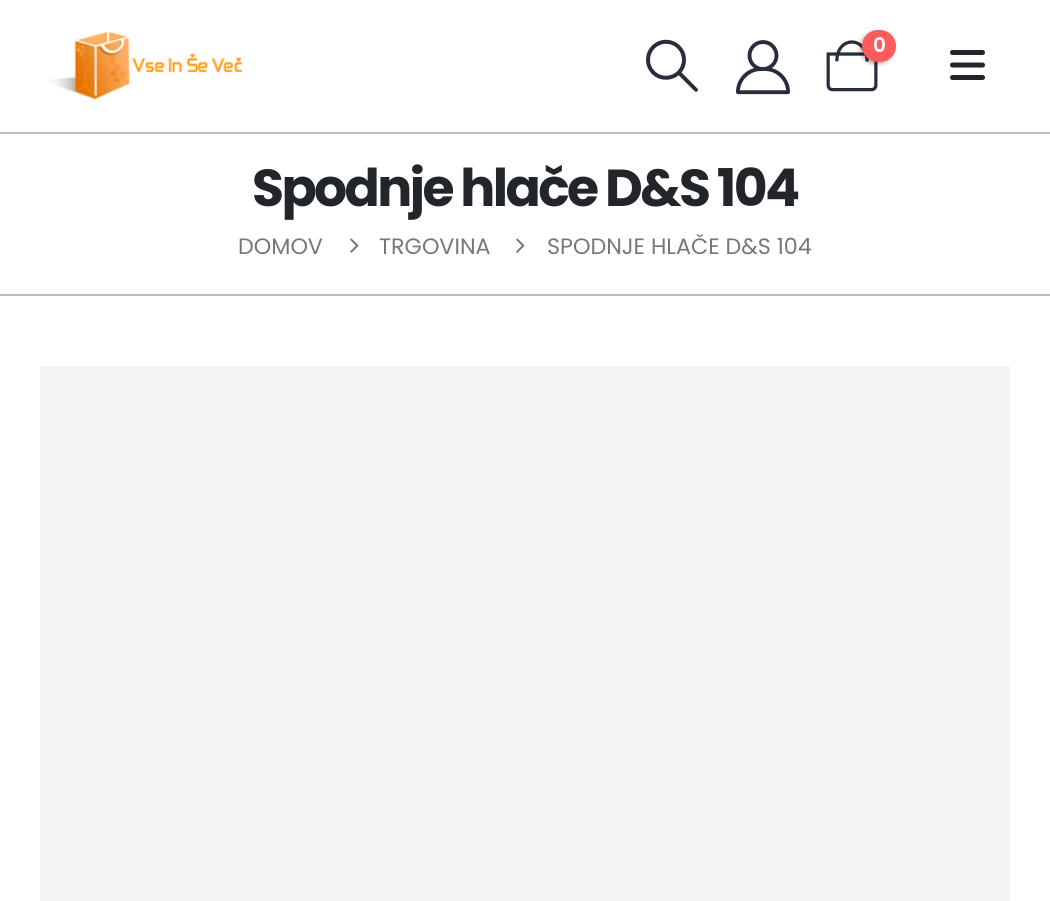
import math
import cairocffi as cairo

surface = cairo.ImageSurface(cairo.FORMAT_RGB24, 1050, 901)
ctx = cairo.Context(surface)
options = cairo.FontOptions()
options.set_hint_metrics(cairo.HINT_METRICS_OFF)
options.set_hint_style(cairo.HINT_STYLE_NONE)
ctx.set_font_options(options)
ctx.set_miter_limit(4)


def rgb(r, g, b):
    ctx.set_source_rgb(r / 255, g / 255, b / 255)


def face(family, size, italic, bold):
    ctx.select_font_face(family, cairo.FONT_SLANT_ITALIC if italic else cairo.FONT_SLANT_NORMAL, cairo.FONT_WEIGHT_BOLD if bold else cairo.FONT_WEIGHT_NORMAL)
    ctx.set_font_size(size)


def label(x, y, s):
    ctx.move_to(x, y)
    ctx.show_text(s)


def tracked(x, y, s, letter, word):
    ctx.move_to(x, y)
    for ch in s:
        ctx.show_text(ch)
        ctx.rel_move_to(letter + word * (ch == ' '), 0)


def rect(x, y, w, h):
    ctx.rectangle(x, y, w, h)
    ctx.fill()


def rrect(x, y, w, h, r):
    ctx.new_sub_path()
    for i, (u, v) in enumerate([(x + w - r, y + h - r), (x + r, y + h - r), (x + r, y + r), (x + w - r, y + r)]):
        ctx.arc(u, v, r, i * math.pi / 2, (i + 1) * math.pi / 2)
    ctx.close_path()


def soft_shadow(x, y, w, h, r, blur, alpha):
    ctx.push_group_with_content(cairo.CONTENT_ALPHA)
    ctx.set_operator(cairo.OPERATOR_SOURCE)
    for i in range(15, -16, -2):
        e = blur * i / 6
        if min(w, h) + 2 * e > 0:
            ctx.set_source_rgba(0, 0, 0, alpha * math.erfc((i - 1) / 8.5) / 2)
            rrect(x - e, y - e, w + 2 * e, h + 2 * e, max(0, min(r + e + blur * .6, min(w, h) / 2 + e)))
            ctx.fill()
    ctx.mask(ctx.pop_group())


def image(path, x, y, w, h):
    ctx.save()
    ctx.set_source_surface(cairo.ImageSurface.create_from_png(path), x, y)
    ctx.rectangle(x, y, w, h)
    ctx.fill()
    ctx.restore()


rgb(255, 255, 255)
ctx.paint()
image('image0.png', 48, 32, 194, 68)
image('image1.png', 646, 39, 52, 53)
image('image2.png', 736, 40, 54, 55)
image('image3.png', 826, 40, 52, 52)
rgb(0, 0, 0)
soft_shadow(860, 32, 34, 32, 16, 2, 0.3)
rgb(255, 91, 91)
rrect(862, 30, 34, 32, 16)
ctx.fill()
face('Poppins SemiBold', 20, 0, 0)
rgb(255, 255, 255)
label(873, 52, '0')
image('image4.png', 950, 50, 35, 30)
rgb(189, 189, 189)
rect(0, 132, 1050, 2)
rect(0, 294, 1050, 2)
face('Poppins', 52, 0, 1)
rgb(34, 37, 41)
tracked(252, 206, 'Spodnje hlače D&S 104', -2.6, 0)
face('Poppins', 22.25, 0, 0)
rgb(119, 119, 119)
label(238, 254, 'DOMOV')
image('image5.png', 350, 238, 9, 15)
label(379, 254, 'TRGOVINA')
image('image5.png', 516, 238, 9, 15)
label(547, 254, 'SPODNJE HLAČE D&S 104')
rgb(244, 244, 244)
rect(40, 366, 970, 535)
surface.write_to_png('render.png')
